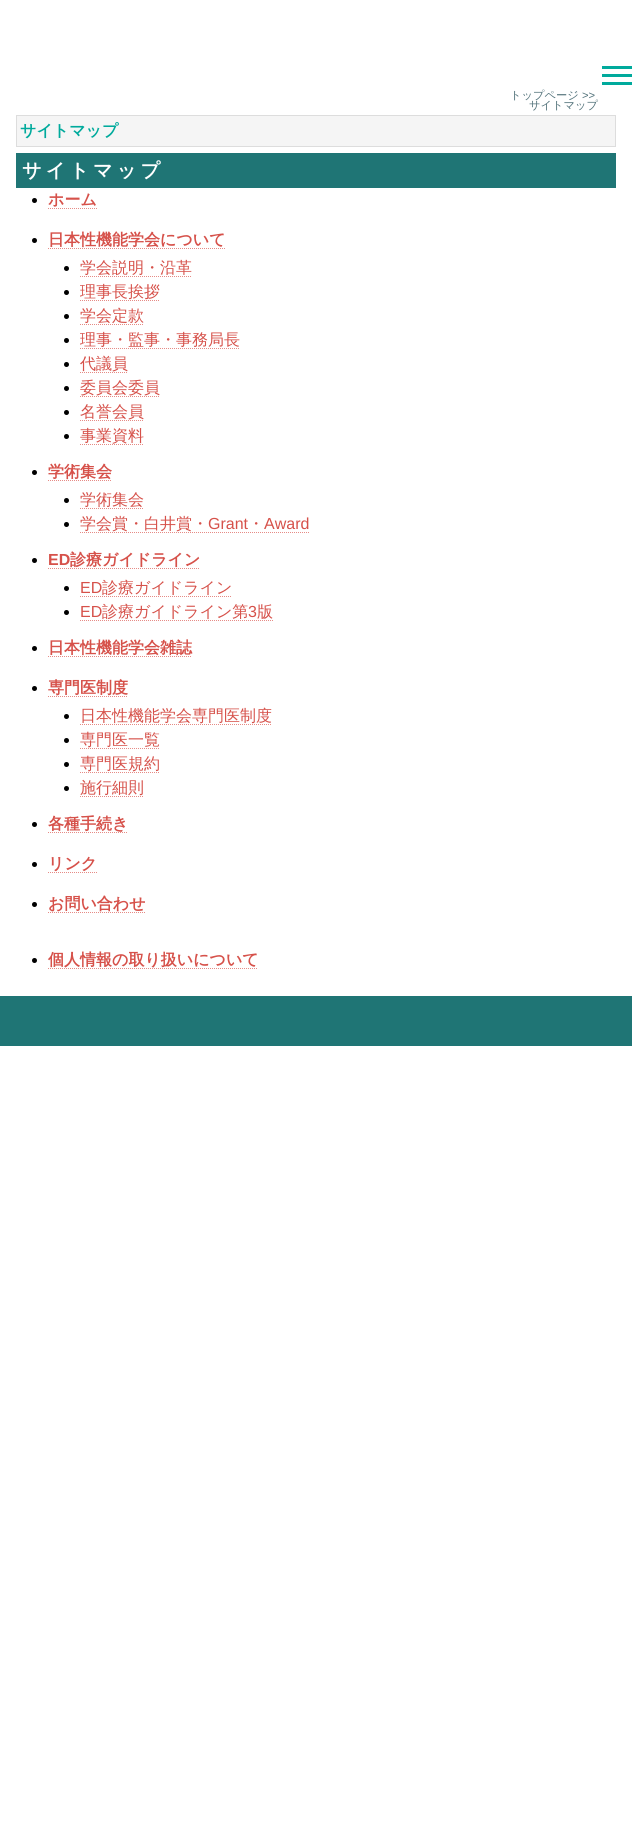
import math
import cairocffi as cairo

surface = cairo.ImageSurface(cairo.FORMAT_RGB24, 632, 1822)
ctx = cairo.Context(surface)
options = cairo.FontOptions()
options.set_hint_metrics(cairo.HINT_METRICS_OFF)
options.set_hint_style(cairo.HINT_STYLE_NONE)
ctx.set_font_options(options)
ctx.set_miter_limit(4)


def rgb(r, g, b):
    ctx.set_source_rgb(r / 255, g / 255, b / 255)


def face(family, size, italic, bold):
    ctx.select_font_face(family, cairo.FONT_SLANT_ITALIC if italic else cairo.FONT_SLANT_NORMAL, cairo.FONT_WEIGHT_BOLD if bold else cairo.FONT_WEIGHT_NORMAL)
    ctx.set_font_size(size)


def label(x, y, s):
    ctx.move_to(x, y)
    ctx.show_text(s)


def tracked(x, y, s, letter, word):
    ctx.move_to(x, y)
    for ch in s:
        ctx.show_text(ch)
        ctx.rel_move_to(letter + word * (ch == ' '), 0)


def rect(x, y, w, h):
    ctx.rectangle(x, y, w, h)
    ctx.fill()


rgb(255, 255, 255)
ctx.paint()
rgb(31, 117, 117)
rect(0, 996, 632, 50)
rgb(0, 170, 156)
rect(602, 66, 30, 3)
rect(602, 74, 30, 3)
rect(602, 82, 30, 3)
face('WenQuanYi Zen Hei Medium', 11.25, 0, 0)
rgb(82, 114, 122)
label(510, 99, 'トップページ')
face('Liberation Sans', 11.25, 0, 0)
label(582, 99, '>>')
face('WenQuanYi Zen Hei Medium', 11.25, 0, 0)
label(529, 109, 'サイトマップ')
rgb(245, 245, 245)
ctx.rectangle(16.5, 115.5, 599, 31)
ctx.fill_preserve()
rgb(221, 221, 221)
ctx.set_line_width(1)
ctx.stroke()
face('WenQuanYi Zen Hei', 16, 0, 1)
rgb(0, 170, 156)
label(20, 136, 'サイトマップ')
rgb(31, 117, 117)
rect(16, 153, 600, 35)
face('WenQuanYi Zen Hei', 19.25, 0, 1)
rgb(255, 255, 255)
tracked(22, 177, 'サイトマップ', 4, 0)
rgb(0, 0, 0)
ctx.new_path()
ctx.arc(34.5, 200.5, 2.5, 0, 2 * math.pi)
ctx.fill()
face('WenQuanYi Zen Hei', 16, 0, 1)
rgb(214, 81, 74)
label(48, 205, 'ホーム')
ctx.new_path()
ctx.move_to(48, 208.5)
ctx.line_to(97, 208.5)
rgb(230, 139, 134)
ctx.set_dash([1, 1])
ctx.stroke()
rgb(0, 0, 0)
ctx.arc(34.5, 240.5, 2.5, 0, 2 * math.pi)
ctx.fill()
rgb(214, 81, 74)
label(48, 245, '日本性機能学会について')
ctx.new_path()
ctx.move_to(48, 248.5)
ctx.line_to(225, 248.5)
rgb(230, 139, 134)
ctx.stroke()
rgb(0, 0, 0)
ctx.arc(66.5, 268.5, 2.5, 0, 2 * math.pi)
ctx.fill()
face('WenQuanYi Zen Hei Medium', 16, 0, 0)
rgb(214, 81, 74)
label(80, 273, '学会説明・沿革')
ctx.new_path()
ctx.move_to(80, 276.5)
ctx.line_to(192, 276.5)
rgb(230, 139, 134)
ctx.stroke()
rgb(0, 0, 0)
ctx.arc(66.5, 292.5, 2.5, 0, 2 * math.pi)
ctx.fill()
rgb(214, 81, 74)
label(80, 297, '理事長挨拶')
ctx.new_path()
ctx.move_to(80, 300.5)
ctx.line_to(160, 300.5)
rgb(230, 139, 134)
ctx.stroke()
rgb(0, 0, 0)
ctx.arc(66.5, 316.5, 2.5, 0, 2 * math.pi)
ctx.fill()
rgb(214, 81, 74)
label(80, 321, '学会定款')
ctx.new_path()
ctx.move_to(80, 324.5)
ctx.line_to(144, 324.5)
rgb(230, 139, 134)
ctx.stroke()
rgb(0, 0, 0)
ctx.arc(66.5, 340.5, 2.5, 0, 2 * math.pi)
ctx.fill()
rgb(214, 81, 74)
label(80, 345, '理事・監事・事務局長')
ctx.new_path()
ctx.move_to(80, 348.5)
ctx.line_to(240, 348.5)
rgb(230, 139, 134)
ctx.stroke()
rgb(0, 0, 0)
ctx.arc(66.5, 364.5, 2.5, 0, 2 * math.pi)
ctx.fill()
rgb(214, 81, 74)
label(80, 369, '代議員')
ctx.new_path()
ctx.move_to(80, 372.5)
ctx.line_to(128, 372.5)
rgb(230, 139, 134)
ctx.stroke()
rgb(0, 0, 0)
ctx.arc(66.5, 388.5, 2.5, 0, 2 * math.pi)
ctx.fill()
rgb(214, 81, 74)
label(80, 393, '委員会委員')
ctx.new_path()
ctx.move_to(80, 396.5)
ctx.line_to(160, 396.5)
rgb(230, 139, 134)
ctx.stroke()
rgb(0, 0, 0)
ctx.arc(66.5, 412.5, 2.5, 0, 2 * math.pi)
ctx.fill()
rgb(214, 81, 74)
label(80, 417, '名誉会員')
ctx.new_path()
ctx.move_to(80, 420.5)
ctx.line_to(144, 420.5)
rgb(230, 139, 134)
ctx.stroke()
rgb(0, 0, 0)
ctx.arc(66.5, 436.5, 2.5, 0, 2 * math.pi)
ctx.fill()
rgb(214, 81, 74)
label(80, 441, '事業資料')
ctx.new_path()
ctx.move_to(80, 444.5)
ctx.line_to(144, 444.5)
rgb(230, 139, 134)
ctx.stroke()
rgb(0, 0, 0)
ctx.arc(34.5, 472.5, 2.5, 0, 2 * math.pi)
ctx.fill()
face('WenQuanYi Zen Hei', 16, 0, 1)
rgb(214, 81, 74)
label(48, 477, '学術集会')
ctx.new_path()
ctx.move_to(48, 480.5)
ctx.line_to(112, 480.5)
rgb(230, 139, 134)
ctx.stroke()
rgb(0, 0, 0)
ctx.arc(66.5, 500.5, 2.5, 0, 2 * math.pi)
ctx.fill()
face('WenQuanYi Zen Hei Medium', 16, 0, 0)
rgb(214, 81, 74)
label(80, 505, '学術集会')
ctx.new_path()
ctx.move_to(80, 508.5)
ctx.line_to(144, 508.5)
rgb(230, 139, 134)
ctx.stroke()
rgb(0, 0, 0)
ctx.arc(66.5, 524.5, 2.5, 0, 2 * math.pi)
ctx.fill()
rgb(214, 81, 74)
label(80, 529, '学会賞・白井賞・')
ctx.new_path()
ctx.move_to(80, 532.5)
ctx.line_to(309, 532.5)
rgb(230, 139, 134)
ctx.stroke()
face('Liberation Sans', 16, 0, 0)
rgb(214, 81, 74)
label(208, 529, 'Grant')
face('WenQuanYi Zen Hei Medium', 16, 0, 0)
label(248, 529, '・')
face('Liberation Sans', 16, 0, 0)
label(264, 529, 'Award')
rgb(0, 0, 0)
ctx.new_path()
ctx.arc(34.5, 560.5, 2.5, 0, 2 * math.pi)
ctx.fill()
face('Liberation Sans', 16, 0, 1)
rgb(214, 81, 74)
label(48, 565, 'ED')
ctx.new_path()
ctx.move_to(48, 568.5)
ctx.line_to(200, 568.5)
rgb(230, 139, 134)
ctx.stroke()
face('WenQuanYi Zen Hei', 16, 0, 1)
rgb(214, 81, 74)
label(70, 565, '診療ガイドライン')
rgb(0, 0, 0)
ctx.new_path()
ctx.arc(66.5, 588.5, 2.5, 0, 2 * math.pi)
ctx.fill()
face('Liberation Sans', 16, 0, 0)
rgb(214, 81, 74)
label(80, 593, 'ED')
ctx.new_path()
ctx.move_to(80, 596.5)
ctx.line_to(232, 596.5)
rgb(230, 139, 134)
ctx.stroke()
face('WenQuanYi Zen Hei Medium', 16, 0, 0)
rgb(214, 81, 74)
label(102, 593, '診療ガイドライン')
rgb(0, 0, 0)
ctx.new_path()
ctx.arc(66.5, 612.5, 2.5, 0, 2 * math.pi)
ctx.fill()
face('Liberation Sans', 16, 0, 0)
rgb(214, 81, 74)
label(80, 617, 'ED')
ctx.new_path()
ctx.move_to(80, 620.5)
ctx.line_to(273, 620.5)
rgb(230, 139, 134)
ctx.stroke()
face('WenQuanYi Zen Hei Medium', 16, 0, 0)
rgb(214, 81, 74)
label(102, 617, '診療ガイドライン第')
face('Liberation Sans', 16, 0, 0)
label(248, 617, '3')
face('WenQuanYi Zen Hei Medium', 16, 0, 0)
label(257, 617, '版')
rgb(0, 0, 0)
ctx.new_path()
ctx.arc(34.5, 648.5, 2.5, 0, 2 * math.pi)
ctx.fill()
face('WenQuanYi Zen Hei', 16, 0, 1)
rgb(214, 81, 74)
label(48, 653, '日本性機能学会雑誌')
ctx.new_path()
ctx.move_to(48, 656.5)
ctx.line_to(192, 656.5)
rgb(230, 139, 134)
ctx.stroke()
rgb(0, 0, 0)
ctx.arc(34.5, 688.5, 2.5, 0, 2 * math.pi)
ctx.fill()
rgb(214, 81, 74)
label(48, 693, '専門医制度')
ctx.new_path()
ctx.move_to(48, 696.5)
ctx.line_to(128, 696.5)
rgb(230, 139, 134)
ctx.stroke()
rgb(0, 0, 0)
ctx.arc(66.5, 716.5, 2.5, 0, 2 * math.pi)
ctx.fill()
face('WenQuanYi Zen Hei Medium', 16, 0, 0)
rgb(214, 81, 74)
label(80, 721, '日本性機能学会専門医制度')
ctx.new_path()
ctx.move_to(80, 724.5)
ctx.line_to(272, 724.5)
rgb(230, 139, 134)
ctx.stroke()
rgb(0, 0, 0)
ctx.arc(66.5, 740.5, 2.5, 0, 2 * math.pi)
ctx.fill()
rgb(214, 81, 74)
label(80, 745, '専門医一覧')
ctx.new_path()
ctx.move_to(80, 748.5)
ctx.line_to(160, 748.5)
rgb(230, 139, 134)
ctx.stroke()
rgb(0, 0, 0)
ctx.arc(66.5, 764.5, 2.5, 0, 2 * math.pi)
ctx.fill()
rgb(214, 81, 74)
label(80, 769, '専門医規約')
ctx.new_path()
ctx.move_to(80, 772.5)
ctx.line_to(160, 772.5)
rgb(230, 139, 134)
ctx.stroke()
rgb(0, 0, 0)
ctx.arc(66.5, 788.5, 2.5, 0, 2 * math.pi)
ctx.fill()
rgb(214, 81, 74)
label(80, 793, '施行細則')
ctx.new_path()
ctx.move_to(80, 796.5)
ctx.line_to(144, 796.5)
rgb(230, 139, 134)
ctx.stroke()
rgb(0, 0, 0)
ctx.arc(34.5, 824.5, 2.5, 0, 2 * math.pi)
ctx.fill()
face('WenQuanYi Zen Hei', 16, 0, 1)
rgb(214, 81, 74)
label(48, 829, '各種手続き')
ctx.new_path()
ctx.move_to(48, 832.5)
ctx.line_to(128, 832.5)
rgb(230, 139, 134)
ctx.stroke()
rgb(0, 0, 0)
ctx.arc(34.5, 864.5, 2.5, 0, 2 * math.pi)
ctx.fill()
rgb(214, 81, 74)
label(48, 869, 'リンク')
ctx.new_path()
ctx.move_to(48, 872.5)
ctx.line_to(97, 872.5)
rgb(230, 139, 134)
ctx.stroke()
rgb(0, 0, 0)
ctx.arc(34.5, 904.5, 2.5, 0, 2 * math.pi)
ctx.fill()
rgb(214, 81, 74)
label(48, 909, 'お問い合わせ')
ctx.new_path()
ctx.move_to(48, 912.5)
ctx.line_to(145, 912.5)
rgb(230, 139, 134)
ctx.stroke()
rgb(0, 0, 0)
ctx.arc(34.5, 960.5, 2.5, 0, 2 * math.pi)
ctx.fill()
rgb(214, 81, 74)
label(48, 965, '個人情報の取り扱いについて')
ctx.new_path()
ctx.move_to(48, 968.5)
ctx.line_to(258, 968.5)
rgb(230, 139, 134)
ctx.stroke()
surface.write_to_png('render.png')
